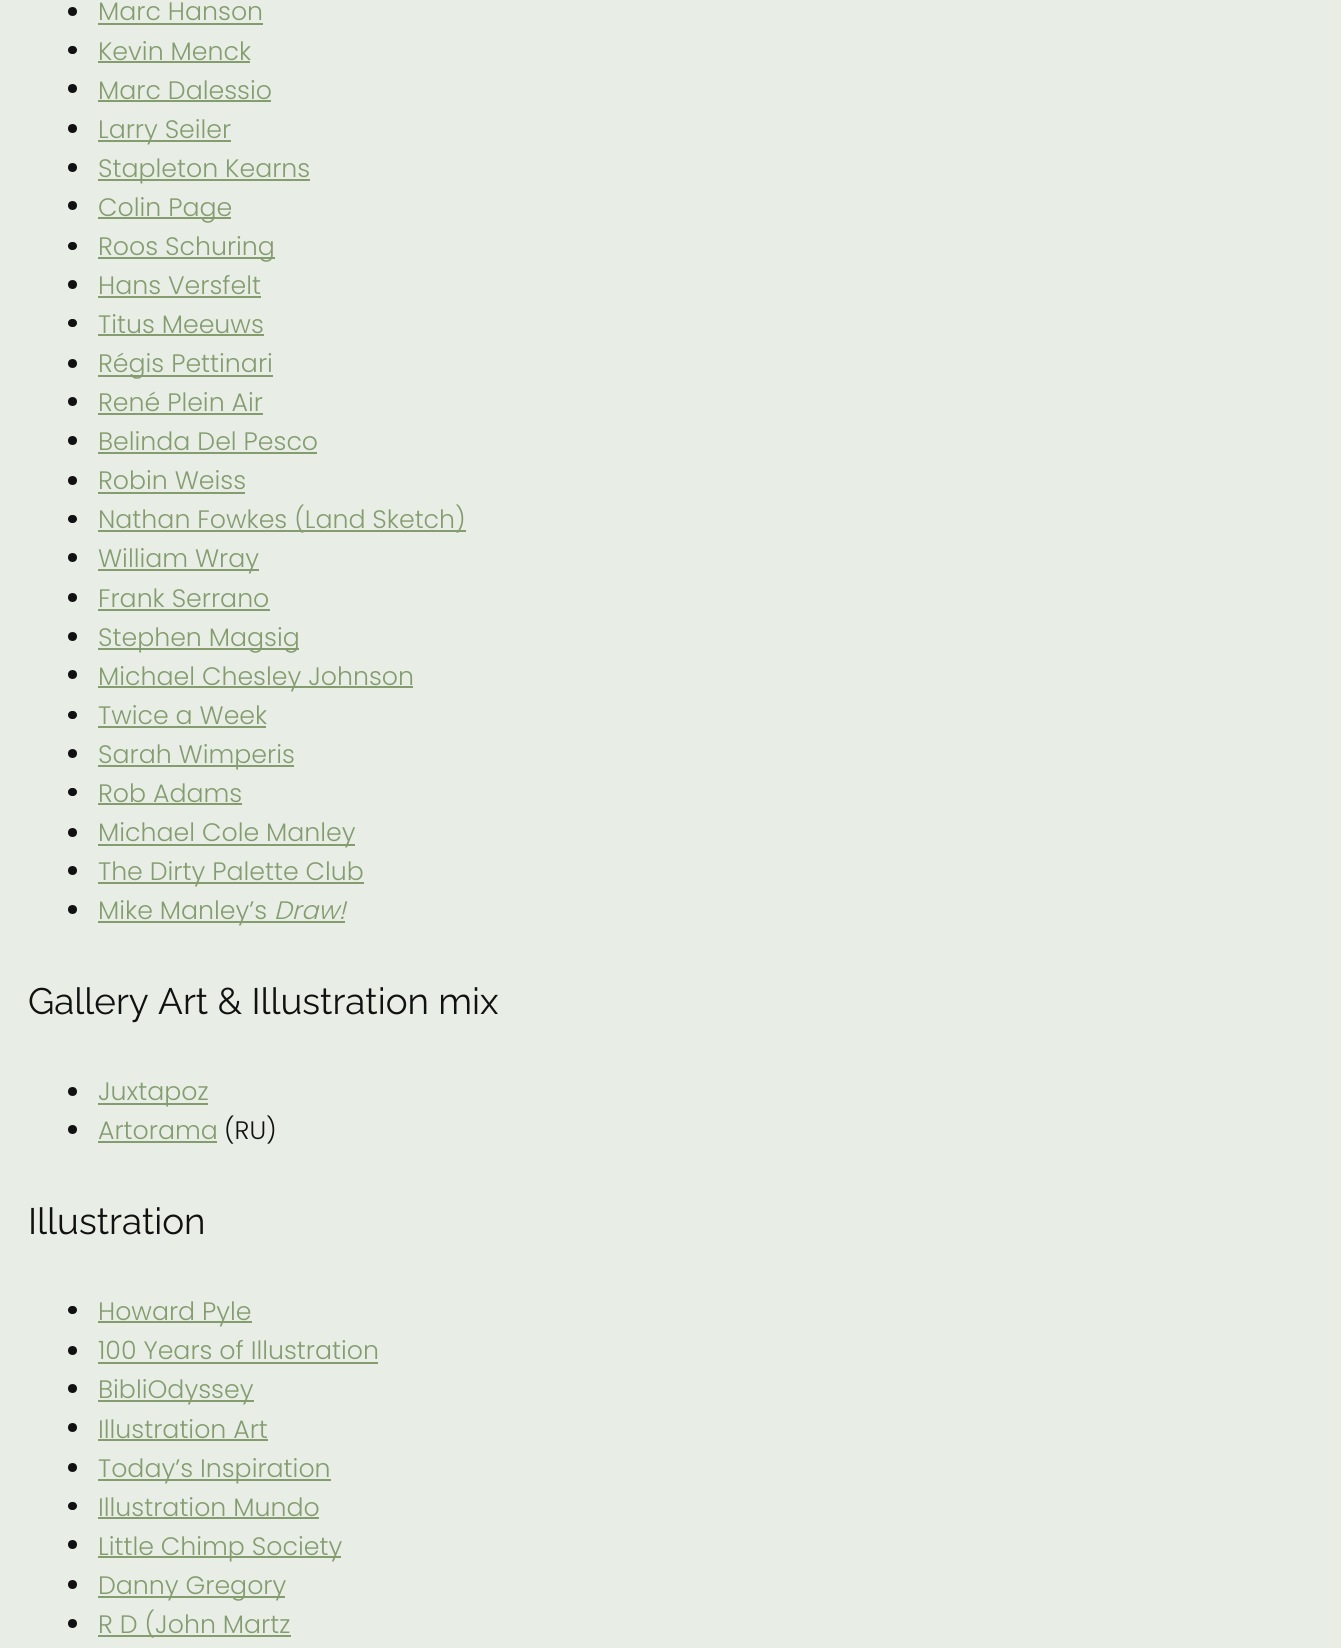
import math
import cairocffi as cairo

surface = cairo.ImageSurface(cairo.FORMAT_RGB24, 1341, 1648)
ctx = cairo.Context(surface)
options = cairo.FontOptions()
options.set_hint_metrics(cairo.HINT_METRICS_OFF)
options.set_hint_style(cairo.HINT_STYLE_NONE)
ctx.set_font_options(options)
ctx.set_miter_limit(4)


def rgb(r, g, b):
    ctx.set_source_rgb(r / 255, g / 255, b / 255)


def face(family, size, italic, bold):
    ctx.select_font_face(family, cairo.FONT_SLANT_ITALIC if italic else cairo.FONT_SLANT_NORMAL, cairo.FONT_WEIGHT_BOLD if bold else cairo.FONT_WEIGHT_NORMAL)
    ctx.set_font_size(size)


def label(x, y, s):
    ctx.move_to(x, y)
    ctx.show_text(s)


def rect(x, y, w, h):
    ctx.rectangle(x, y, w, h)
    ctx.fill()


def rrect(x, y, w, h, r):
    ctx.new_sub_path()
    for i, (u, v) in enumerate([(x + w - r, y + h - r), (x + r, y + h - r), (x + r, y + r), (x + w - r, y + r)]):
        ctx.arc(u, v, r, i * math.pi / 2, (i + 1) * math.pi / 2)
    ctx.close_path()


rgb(232, 238, 230)
ctx.paint()
rgb(17, 17, 17)
ctx.arc(72.5, 11.5, 4.5, 0, 2 * math.pi)
ctx.fill()
face('Poppins Light', 25.25, 0, 0)
rgb(132, 156, 110)
label(98, 20, 'Marc Hanson')
rect(98, 23, 165, 2)
rgb(17, 17, 17)
rrect(68, 46, 9, 8, 4)
ctx.fill()
rgb(132, 156, 110)
label(98, 60, 'Kevin Menck')
rect(98, 61, 152, 2)
rgb(17, 17, 17)
ctx.new_path()
ctx.arc(72.5, 88.5, 4.5, 0, 2 * math.pi)
ctx.fill()
rgb(132, 156, 110)
label(98, 99, 'Marc Dalessio')
rect(98, 100, 173, 2)
rgb(17, 17, 17)
ctx.new_path()
ctx.arc(72.5, 128.5, 4.5, 0, 2 * math.pi)
ctx.fill()
rgb(132, 156, 110)
rect(98, 140, 133, 2)
label(98, 138, 'Larry Seiler')
rgb(17, 17, 17)
ctx.new_path()
ctx.arc(72.5, 167.5, 4.5, 0, 2 * math.pi)
ctx.fill()
rgb(132, 156, 110)
rect(98, 179, 212, 2)
label(98, 177, 'Stapleton Kearns')
rgb(17, 17, 17)
ctx.new_path()
ctx.arc(72.5, 205.5, 4.5, 0, 2 * math.pi)
ctx.fill()
rgb(132, 156, 110)
rect(98, 217, 133, 2)
label(98, 216, 'Colin Page')
rgb(17, 17, 17)
rrect(68, 242, 9, 8, 4)
ctx.fill()
rgb(132, 156, 110)
rect(98, 257, 177, 2)
label(98, 255, 'Roos Schuring')
rgb(17, 17, 17)
ctx.new_path()
ctx.arc(72.5, 284.5, 4.5, 0, 2 * math.pi)
ctx.fill()
rgb(132, 156, 110)
label(98, 294, 'Hans Versfelt')
rect(98, 296, 163, 2)
rgb(17, 17, 17)
rrect(68, 319, 9, 8, 4)
ctx.fill()
rgb(132, 156, 110)
label(98, 333, 'Titus Meeuws')
rect(98, 334, 166, 2)
rgb(17, 17, 17)
ctx.new_path()
ctx.arc(72.5, 363.5, 4.5, 0, 2 * math.pi)
ctx.fill()
rgb(132, 156, 110)
rect(98, 375, 175, 2)
label(98, 372, 'Régis Pettinari')
rgb(17, 17, 17)
ctx.new_path()
ctx.arc(72.5, 401.5, 4.5, 0, 2 * math.pi)
ctx.fill()
rgb(132, 156, 110)
label(98, 411, 'René Plein Air')
rect(98, 413, 165, 2)
rgb(17, 17, 17)
ctx.new_path()
ctx.arc(72.5, 440.5, 4.5, 0, 2 * math.pi)
ctx.fill()
rgb(132, 156, 110)
label(98, 450, 'Belinda Del Pesco')
rect(98, 452, 219, 2)
rgb(17, 17, 17)
ctx.new_path()
ctx.arc(72.5, 480.5, 4.5, 0, 2 * math.pi)
ctx.fill()
rgb(132, 156, 110)
label(98, 489, 'Robin Weiss')
rect(98, 492, 147, 2)
rgb(17, 17, 17)
rrect(68, 515, 9, 8, 4)
ctx.fill()
rgb(132, 156, 110)
rect(98, 530, 368, 2)
label(98, 528, 'Nathan Fowkes (Land Sketch)')
rgb(17, 17, 17)
ctx.new_path()
ctx.arc(72.5, 557.5, 4.5, 0, 2 * math.pi)
ctx.fill()
rgb(132, 156, 110)
rect(98, 569, 161, 2)
label(98, 567, 'William Wray')
rgb(17, 17, 17)
ctx.new_path()
ctx.arc(72.5, 597.5, 4.5, 0, 2 * math.pi)
ctx.fill()
rgb(132, 156, 110)
label(98, 607, 'Frank Serrano')
rect(98, 609, 172, 2)
rgb(17, 17, 17)
ctx.new_path()
ctx.arc(72.5, 636.5, 4.5, 0, 2 * math.pi)
ctx.fill()
rgb(132, 156, 110)
rect(98, 648, 201, 2)
label(98, 646, 'Stephen Magsig')
rgb(17, 17, 17)
ctx.new_path()
ctx.arc(72.5, 674.5, 4.5, 0, 2 * math.pi)
ctx.fill()
rgb(132, 156, 110)
rect(98, 686, 315, 2)
label(98, 685, 'Michael Chesley Johnson')
rgb(17, 17, 17)
rrect(68, 711, 9, 8, 4)
ctx.fill()
rgb(132, 156, 110)
label(98, 724, 'Twice a Week')
rect(98, 726, 168, 2)
rgb(17, 17, 17)
ctx.new_path()
ctx.arc(72.5, 753.5, 4.5, 0, 2 * math.pi)
ctx.fill()
rgb(132, 156, 110)
rect(98, 765, 196, 2)
label(98, 763, 'Sarah Wimperis')
rgb(17, 17, 17)
rrect(68, 788, 9, 8, 4)
ctx.fill()
rgb(132, 156, 110)
label(98, 802, 'Rob Adams')
rect(98, 803, 144, 2)
rgb(17, 17, 17)
ctx.new_path()
ctx.arc(72.5, 832.5, 4.5, 0, 2 * math.pi)
ctx.fill()
rgb(132, 156, 110)
rect(98, 844, 257, 2)
label(98, 841, 'Michael Cole Manley')
rgb(17, 17, 17)
ctx.new_path()
ctx.arc(72.5, 870.5, 4.5, 0, 2 * math.pi)
ctx.fill()
rgb(132, 156, 110)
rect(98, 882, 266, 2)
label(98, 880, 'The Dirty Palette Club')
rgb(17, 17, 17)
ctx.new_path()
ctx.arc(72.5, 909.5, 4.5, 0, 2 * math.pi)
ctx.fill()
rgb(132, 156, 110)
rect(98, 921, 247, 2)
label(98, 919, 'Mike Manley’s')
face('Poppins Light', 25.25, 1, 0)
label(274, 919, 'Draw!')
face('Raleway', 36.75, 0, 0)
rgb(17, 17, 17)
label(28, 1014, 'Gallery Art & Illustration mix')
ctx.new_path()
ctx.arc(72.5, 1091.5, 4.5, 0, 2 * math.pi)
ctx.fill()
rgb(132, 156, 110)
rect(98, 1103, 110, 2)
face('Poppins Light', 25.25, 0, 0)
label(98, 1100, 'Juxtapoz')
rgb(17, 17, 17)
ctx.new_path()
ctx.arc(72.5, 1129.5, 4.5, 0, 2 * math.pi)
ctx.fill()
rgb(132, 156, 110)
label(98, 1139, 'Artorama')
rect(98, 1141, 119, 2)
rgb(17, 17, 17)
label(224, 1139, '(RU)')
face('Raleway', 36.75, 0, 0)
label(28, 1234, 'Illustration')
rrect(68, 1306, 9, 8, 4)
ctx.fill()
rgb(132, 156, 110)
rect(98, 1321, 154, 2)
face('Poppins Light', 25.25, 0, 0)
label(98, 1320, 'Howard Pyle')
rgb(17, 17, 17)
ctx.new_path()
ctx.arc(72.5, 1350.5, 4.5, 0, 2 * math.pi)
ctx.fill()
rgb(132, 156, 110)
label(98, 1359, '100 Years of Illustration')
rect(98, 1362, 280, 2)
rgb(17, 17, 17)
ctx.new_path()
ctx.arc(72.5, 1388.5, 4.5, 0, 2 * math.pi)
ctx.fill()
rgb(132, 156, 110)
rect(98, 1400, 156, 2)
label(98, 1398, 'BibliOdyssey')
rgb(17, 17, 17)
ctx.new_path()
ctx.arc(72.5, 1427.5, 4.5, 0, 2 * math.pi)
ctx.fill()
rgb(132, 156, 110)
label(98, 1438, 'Illustration Art')
rect(98, 1439, 170, 2)
rgb(17, 17, 17)
ctx.new_path()
ctx.arc(72.5, 1467.5, 4.5, 0, 2 * math.pi)
ctx.fill()
rgb(132, 156, 110)
rect(98, 1479, 233, 2)
label(98, 1477, 'Today’s Inspiration')
rgb(17, 17, 17)
rrect(68, 1502, 9, 8, 4)
ctx.fill()
rgb(132, 156, 110)
label(98, 1516, 'Illustration Mundo')
rect(98, 1517, 221, 2)
rgb(17, 17, 17)
ctx.new_path()
ctx.arc(72.5, 1544.5, 4.5, 0, 2 * math.pi)
ctx.fill()
rgb(132, 156, 110)
rect(98, 1556, 243, 2)
label(98, 1555, 'Little Chimp Society')
rgb(17, 17, 17)
ctx.new_path()
ctx.arc(72.5, 1584.5, 4.5, 0, 2 * math.pi)
ctx.fill()
rgb(132, 156, 110)
rect(98, 1596, 187, 2)
label(98, 1594, 'Danny Gregory')
rgb(17, 17, 17)
ctx.new_path()
ctx.arc(72.5, 1623.5, 4.5, 0, 2 * math.pi)
ctx.fill()
rgb(132, 156, 110)
rect(98, 1635, 193, 2)
label(98, 1633, 'R D (John Martz')
surface.write_to_png('render.png')
